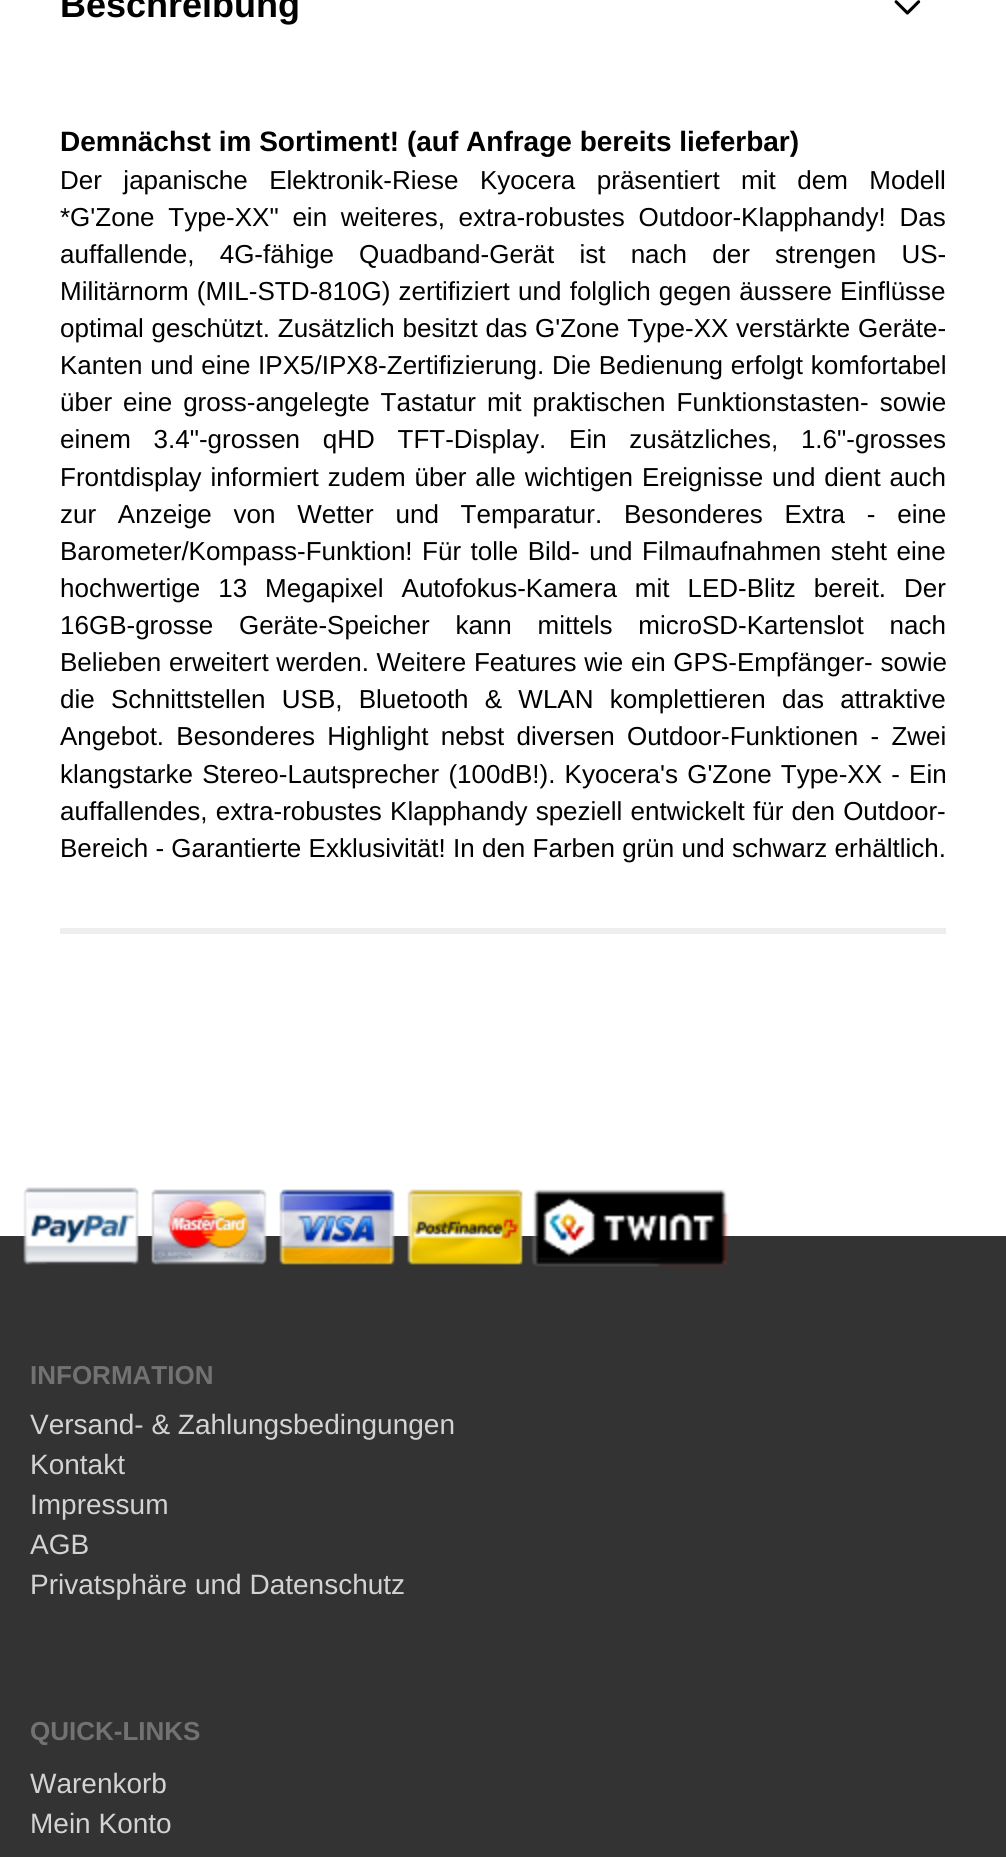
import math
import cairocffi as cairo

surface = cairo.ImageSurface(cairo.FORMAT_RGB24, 1006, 1857)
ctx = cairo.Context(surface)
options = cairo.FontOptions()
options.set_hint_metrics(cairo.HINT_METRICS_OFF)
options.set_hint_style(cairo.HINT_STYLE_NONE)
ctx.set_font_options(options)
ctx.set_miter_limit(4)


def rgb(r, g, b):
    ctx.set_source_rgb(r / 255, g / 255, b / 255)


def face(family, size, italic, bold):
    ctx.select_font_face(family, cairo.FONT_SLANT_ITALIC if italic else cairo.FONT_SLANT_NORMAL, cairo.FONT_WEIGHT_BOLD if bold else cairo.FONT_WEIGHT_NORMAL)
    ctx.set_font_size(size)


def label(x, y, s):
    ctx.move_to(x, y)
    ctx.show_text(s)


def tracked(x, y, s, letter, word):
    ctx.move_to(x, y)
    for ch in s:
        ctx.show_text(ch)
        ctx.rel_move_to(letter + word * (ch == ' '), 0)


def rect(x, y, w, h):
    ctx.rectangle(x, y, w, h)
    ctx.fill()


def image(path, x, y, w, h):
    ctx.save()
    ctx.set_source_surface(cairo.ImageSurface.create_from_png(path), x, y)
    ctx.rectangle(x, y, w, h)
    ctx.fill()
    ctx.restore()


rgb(255, 255, 255)
ctx.paint()
face('Liberation Sans', 36, 0, 1)
rgb(0, 0, 0)
label(60, 17, 'Beschreibung')
image('image0.png', 894, 0, 27, 15)
rgb(238, 238, 238)
rect(60, 928, 886, 6)
face('Liberation Sans', 28, 0, 1)
rgb(0, 0, 0)
label(60, 151, 'Demnächst im Sortiment! (auf Anfrage bereits lieferbar)')
face('Liberation Sans', 26, 0, 0)
tracked(60, 189, 'Der japanische Elektronik-Riese Kyocera präsentiert mit dem Modell', 0, 14.25)
tracked(60, 226, '*G\'Zone Type-XX" ein weiteres, extra-robustes Outdoor-Klapphandy! Das', 0, 6.5)
tracked(60, 263, 'auffallende, 4G-fähige Quadband-Gerät ist nach der strengen US-', 0, 18)
tracked(60, 300, 'Militärnorm (MIL-STD-810G) zertifiziert und folglich gegen äussere Einflüsse', 0, 1)
tracked(60, 337, 'optimal geschützt. Zusätzlich besitzt das G\'Zone Type-XX verstärkte Geräte-', 0, 0.5)
tracked(60, 374, 'Kanten und eine IPX5/IPX8-Zertifizierung. Die Bedienung erfolgt komfortabel', 0, 0.5)
tracked(60, 411, 'über eine gross-angelegte Tastatur mit praktischen Funktionstasten- sowie', 0, 3.75)
tracked(60, 448, 'einem 3.4"-grossen qHD TFT-Display. Ein zusätzliches, 1.6"-grosses', 0, 15.5)
tracked(60, 486, 'Frontdisplay informiert zudem über alle wichtigen Ereignisse und dient auch', 0, 1.6)
tracked(60, 523, 'zur Anzeige von Wetter und Temparatur. Besonderes Extra - eine', 0, 14.5)
tracked(60, 560, 'Barometer/Kompass-Funktion! Für tolle Bild- und Filmaufnahmen steht eine', 0, 2.25)
tracked(60, 597, 'hochwertige 13 Megapixel Autofokus-Kamera mit LED-Blitz bereit. Der', 0, 10.75)
tracked(60, 634, '16GB-grosse Geräte-Speicher kann mittels microSD-Kartenslot nach', 0, 18.5)
tracked(60, 671, 'Belieben erweitert werden. Weitere Features wie ein GPS-Empfänger- sowie', 0, 0.5)
tracked(60, 708, 'die Schnittstellen USB, Bluetooth & WLAN komplettieren das attraktive', 0, 9)
tracked(60, 745, 'Angebot. Besonderes Highlight nebst diversen Outdoor-Funktionen - Zwei', 0, 5)
tracked(60, 783, 'klangstarke Stereo-Lautsprecher (100dB!). Kyocera\'s G\'Zone Type-XX - Ein', 0, 2)
tracked(60, 820, 'auffallendes, extra-robustes Klapphandy speziell entwickelt für den Outdoor-', 0, 1)
label(60, 857, 'Bereich - Garantierte Exklusivität! In den Farben grün und schwarz erhältlich.')
rgb(51, 51, 51)
rect(0, 1236, 1006, 621)
image('image1.png', 23, 1187, 706, 80)
face('Liberation Sans', 26, 0, 1)
rgb(114, 114, 114)
label(30, 1384, 'INFORMATION')
face('Liberation Sans', 28, 0, 0)
rgb(211, 211, 211)
label(30, 1434, 'Versand- & Zahlungsbedingungen')
label(30, 1474, 'Kontakt')
label(30, 1514, 'Impressum')
label(30, 1554, 'AGB')
label(30, 1594, 'Privatsphäre und Datenschutz')
face('Liberation Sans', 26, 0, 1)
rgb(114, 114, 114)
label(30, 1740, 'QUICK-LINKS')
face('Liberation Sans', 28, 0, 0)
rgb(211, 211, 211)
label(30, 1793, 'Warenkorb')
label(30, 1833, 'Mein Konto')
surface.write_to_png('render.png')
